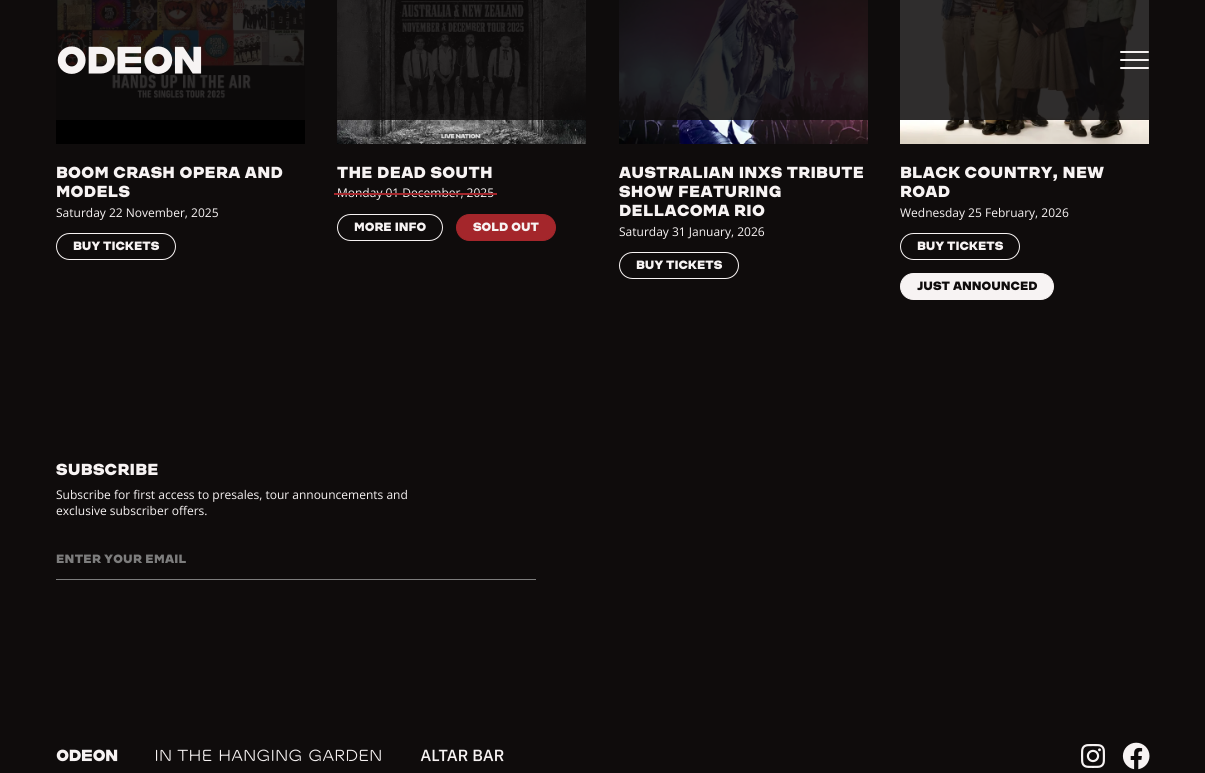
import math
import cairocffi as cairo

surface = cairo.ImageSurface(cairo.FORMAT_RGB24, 1205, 773)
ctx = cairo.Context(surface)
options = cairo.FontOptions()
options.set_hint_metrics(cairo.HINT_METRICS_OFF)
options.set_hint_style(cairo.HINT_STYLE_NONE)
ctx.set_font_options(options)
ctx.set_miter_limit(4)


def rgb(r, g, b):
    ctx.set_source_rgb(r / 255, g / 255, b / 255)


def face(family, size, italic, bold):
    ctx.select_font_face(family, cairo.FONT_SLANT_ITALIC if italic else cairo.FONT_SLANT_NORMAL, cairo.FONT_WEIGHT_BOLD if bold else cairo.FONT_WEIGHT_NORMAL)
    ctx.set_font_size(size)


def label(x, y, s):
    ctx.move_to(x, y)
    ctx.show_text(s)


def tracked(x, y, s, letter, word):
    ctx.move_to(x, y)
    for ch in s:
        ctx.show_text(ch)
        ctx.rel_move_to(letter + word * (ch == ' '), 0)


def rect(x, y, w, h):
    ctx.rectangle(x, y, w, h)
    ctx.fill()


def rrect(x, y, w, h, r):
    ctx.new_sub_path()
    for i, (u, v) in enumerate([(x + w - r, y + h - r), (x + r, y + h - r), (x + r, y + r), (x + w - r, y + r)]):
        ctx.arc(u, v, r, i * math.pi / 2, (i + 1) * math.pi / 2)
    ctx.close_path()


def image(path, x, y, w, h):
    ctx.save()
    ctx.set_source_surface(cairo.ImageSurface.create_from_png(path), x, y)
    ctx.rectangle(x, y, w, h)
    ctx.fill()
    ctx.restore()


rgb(15, 12, 12)
ctx.paint()
image('image1.png', 56, 0, 249, 144)
image('image2.png', 337, 0, 249, 144)
image('image3.png', 619, 0, 249, 144)
image('image4.png', 900, 0, 249, 144)
ctx.set_source_rgba(0.059, 0.047, 0.047, 0.86)
rect(56, 0, 1093, 120)
image('image0.png', 57, 46, 145, 28)
rgb(247, 243, 243)
rrect(1120, 51, 29, 2, 1)
ctx.fill()
rrect(1120, 59, 29, 2, 1)
ctx.fill()
rrect(1120, 67, 29, 2, 1)
ctx.fill()
face('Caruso', 16, 0, 1)
tracked(56, 178, 'BOOM CRASH OPERA AND', 0.3, 0)
tracked(56, 197, 'MODELS', 0.3, 0)
face('Open Sans', 12, 0, 0)
label(56, 217, 'Saturday 22 November, 2025')
rrect(56.5, 233.5, 119, 26, 13)
ctx.set_line_width(1)
ctx.stroke()
face('Caruso', 12, 0, 1)
label(73, 250, 'BUY TICKETS')
face('Caruso', 16, 0, 1)
tracked(337, 178, 'THE DEAD SOUTH', 0.3, 0)
face('Open Sans', 12, 0, 0)
label(337, 197, 'Monday 01 December, 2025')
rgb(164, 38, 43)
rect(334, 193, 163, 2)
rrect(337.5, 214.5, 105, 26, 13)
rgb(247, 243, 243)
ctx.stroke()
face('Caruso', 12, 0, 1)
label(354, 231, 'MORE INFO')
rgb(164, 38, 43)
rrect(456.5, 214.5, 99, 26, 13)
ctx.fill_preserve()
ctx.stroke()
rgb(247, 243, 243)
label(473, 231, 'SOLD OUT')
face('Caruso', 16, 0, 1)
tracked(619, 178, 'AUSTRALIAN INXS TRIBUTE', 0.3, 0)
tracked(619, 197, 'SHOW FEATURING', 0.3, 0)
tracked(619, 216, 'DELLACOMA RIO', 0.3, 0)
face('Open Sans', 12, 0, 0)
label(619, 236, 'Saturday 31 January, 2026')
rrect(619.5, 252.5, 119, 26, 13)
ctx.stroke()
face('Caruso', 12, 0, 1)
label(636, 269, 'BUY TICKETS')
face('Caruso', 16, 0, 1)
tracked(900, 178, 'BLACK COUNTRY, NEW', 0.3, 0)
tracked(900, 197, 'ROAD', 0.3, 0)
face('Open Sans', 12, 0, 0)
label(900, 217, 'Wednesday 25 February, 2026')
rrect(900.5, 233.5, 119, 26, 13)
ctx.stroke()
face('Caruso', 12, 0, 1)
label(917, 250, 'BUY TICKETS')
rrect(900.5, 273.5, 153, 26, 13)
ctx.fill_preserve()
ctx.stroke()
rgb(15, 12, 12)
label(917, 290, 'JUST ANNOUNCED')
face('Caruso', 16, 0, 1)
rgb(247, 243, 243)
tracked(56, 475, 'SUBSCRIBE', 0.3, 0)
face('Open Sans', 12, 0, 0)
label(56, 499, 'Subscribe for first access to presales, tour announcements and')
label(56, 515, 'exclusive subscriber offers.')
face('Caruso', 12, 0, 1)
rgb(125, 125, 125)
tracked(56, 563, 'ENTER YOUR EMAIL', 0.25, 0)
rect(56, 579, 480, 1)
image('image5.png', 56, 749, 62, 13)
image('image6.png', 156, 749, 225, 13)
image('image7.png', 420, 749, 84, 13)
image('image8.png', 1081, 744, 24, 24)
image('image9.png', 1122, 742, 28, 28)
surface.write_to_png('render.png')
